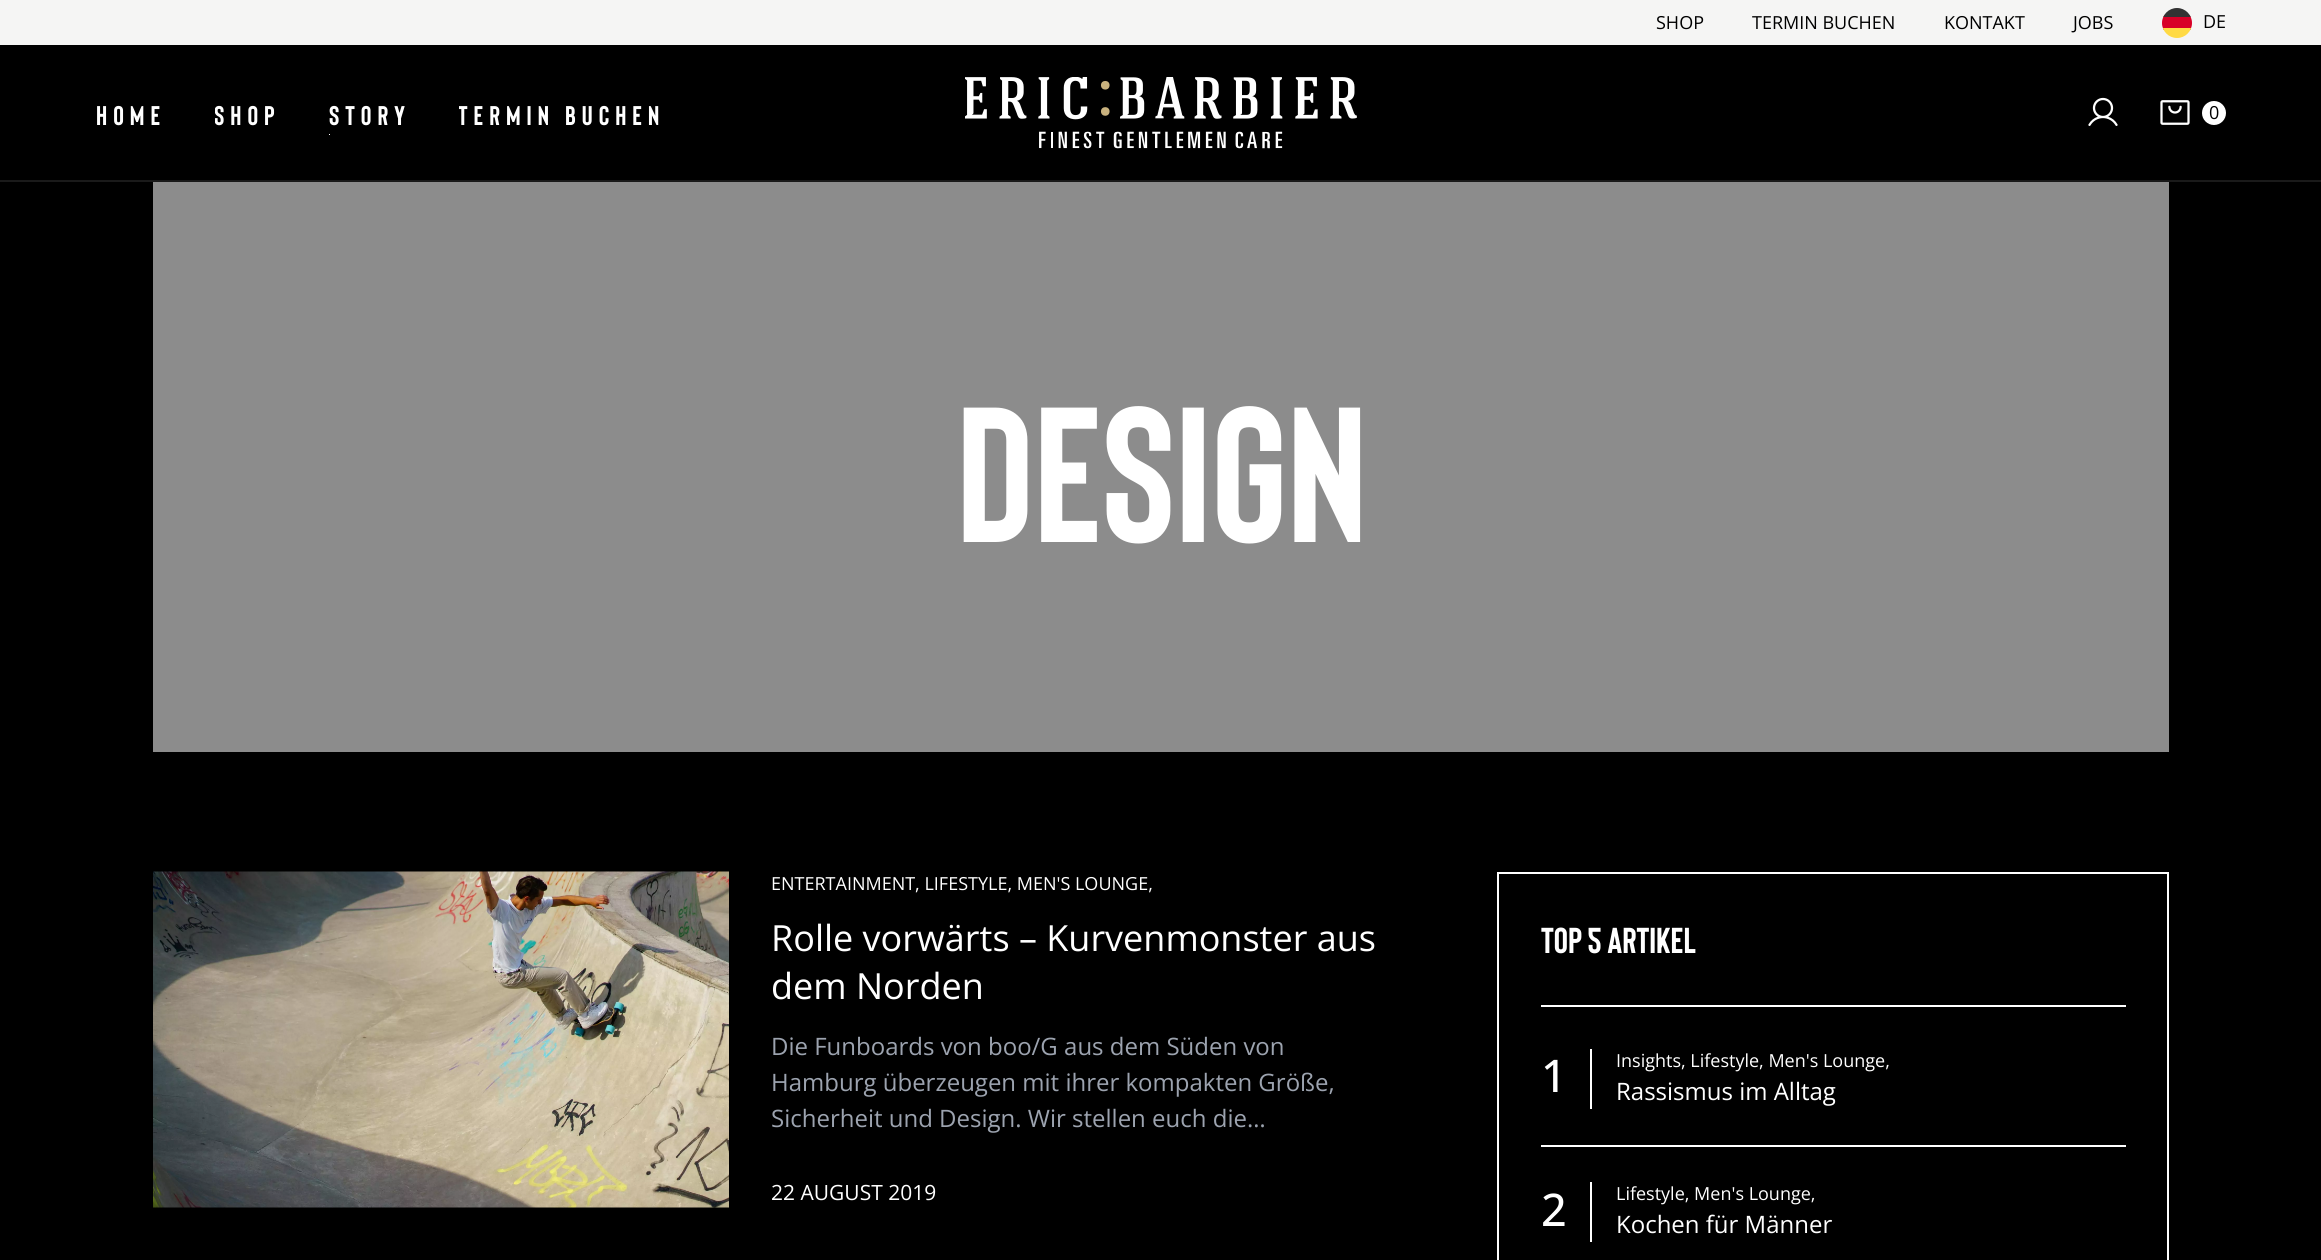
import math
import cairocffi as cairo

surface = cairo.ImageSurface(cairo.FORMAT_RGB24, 2321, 1260)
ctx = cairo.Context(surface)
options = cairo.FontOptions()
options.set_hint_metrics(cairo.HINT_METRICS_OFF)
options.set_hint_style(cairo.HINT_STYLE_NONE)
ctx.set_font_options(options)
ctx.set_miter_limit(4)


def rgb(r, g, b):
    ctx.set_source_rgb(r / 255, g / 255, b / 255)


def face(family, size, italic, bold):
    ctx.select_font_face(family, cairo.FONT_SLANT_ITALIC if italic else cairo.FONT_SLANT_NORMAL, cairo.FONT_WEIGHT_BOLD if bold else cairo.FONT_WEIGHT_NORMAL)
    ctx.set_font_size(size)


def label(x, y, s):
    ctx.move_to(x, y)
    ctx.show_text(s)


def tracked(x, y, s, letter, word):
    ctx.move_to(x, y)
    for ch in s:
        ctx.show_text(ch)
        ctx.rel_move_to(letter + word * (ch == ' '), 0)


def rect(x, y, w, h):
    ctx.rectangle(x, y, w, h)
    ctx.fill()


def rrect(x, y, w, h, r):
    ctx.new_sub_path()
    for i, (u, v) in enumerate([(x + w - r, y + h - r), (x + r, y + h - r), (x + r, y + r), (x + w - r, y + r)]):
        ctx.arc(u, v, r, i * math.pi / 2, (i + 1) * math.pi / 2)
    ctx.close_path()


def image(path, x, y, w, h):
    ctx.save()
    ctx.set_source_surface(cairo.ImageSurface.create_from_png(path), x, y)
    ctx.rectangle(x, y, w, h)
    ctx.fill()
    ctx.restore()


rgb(0, 0, 0)
ctx.paint()
rgb(245, 245, 244)
rect(0, 0, 2321, 45)
face('Open Sans', 18, 0, 0)
rgb(0, 0, 0)
label(1656, 29, 'SHOP')
label(1752, 29, 'TERMIN BUCHEN')
label(1944, 29, 'KONTAKT')
label(2073, 29, 'JOBS')
ctx.save()
rrect(2162, 8, 30, 30, 15)
ctx.clip()
rgb(216, 0, 39)
rect(2162, 15, 30, 15)
rgb(255, 218, 68)
rect(2163, 28, 28, 10)
rgb(51, 51, 51)
rect(2163, 8, 28, 9)
ctx.restore()
label(2203, 28, 'DE')
rgb(26, 26, 26)
rect(0, 180, 2321, 2)
face('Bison', 27, 0, 1)
rgb(255, 255, 255)
tracked(96, 125, 'HOME', 6, 0)
ctx.save()
ctx.rectangle(215, 93, 66, 42)
ctx.clip()
tracked(214, 125, 'SHOP', 6, 0)
ctx.restore()
tracked(329, 125, 'STORY', 6, 0)
rect(329, 134, 1, 1)
ctx.save()
ctx.rectangle(459, 93, 207, 42)
ctx.clip()
tracked(458, 125, 'TERMIN BUCHEN', 6, 0)
ctx.restore()
image('image0.png', 965, 77, 392, 72)
image('image1.png', 2088, 97, 30, 29)
image('image2.png', 2160, 100, 30, 25)
ctx.arc(2214, 113, 12, 0, 2 * math.pi)
ctx.fill()
face('Open Sans', 18, 0, 0)
rgb(0, 0, 0)
label(2209, 119, '0')
rgb(140, 140, 140)
rect(153, 182, 2016, 570)
face('Bison', 192, 0, 1)
rgb(255, 255, 255)
label(956, 542, 'design')
image('image3.png', 153, 871, 576, 337)
face('Open Sans', 18, 0, 0)
label(771, 890, 'ENTERTAINMENT, LIFESTYLE, MEN\'S LOUNGE,')
face('Open Sans', 36, 0, 0)
label(771, 951, 'Rolle vorwärts – Kurvenmonster aus')
label(771, 999, 'dem Norden')
face('Open Sans', 24, 0, 0)
rgb(156, 163, 175)
label(771, 1055, 'Die Funboards von boo/G aus dem Süden von')
label(771, 1091, 'Hamburg überzeugen mit ihrer kompakten Größe,')
label(771, 1127, 'Sicherheit und Design. Wir stellen euch die…')
face('Open Sans', 21, 0, 0)
rgb(255, 255, 255)
label(771, 1200, '22 AUGUST 2019')
ctx.rectangle(1498, 873, 670, 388)
ctx.stroke()
face('Bison', 36, 0, 1)
label(1541, 953, 'TOP 5 ARTIKEL')
rect(1541, 1005, 585, 2)
face('Open Sans Medium', 45, 0, 0)
label(1541, 1092, '1')
rect(1590, 1049, 2, 60)
face('Open Sans', 18, 0, 0)
label(1616, 1067, 'Insights, Lifestyle, Men\'s Lounge,')
face('Open Sans', 24, 0, 0)
label(1616, 1100, 'Rassismus im Alltag')
rect(1541, 1145, 585, 2)
face('Open Sans Medium', 45, 0, 0)
label(1541, 1226, '2')
rect(1590, 1182, 2, 60)
face('Open Sans', 18, 0, 0)
label(1616, 1200, 'Lifestyle, Men\'s Lounge,')
face('Open Sans', 24, 0, 0)
label(1616, 1233, 'Kochen für Männer')
surface.write_to_png('render.png')
